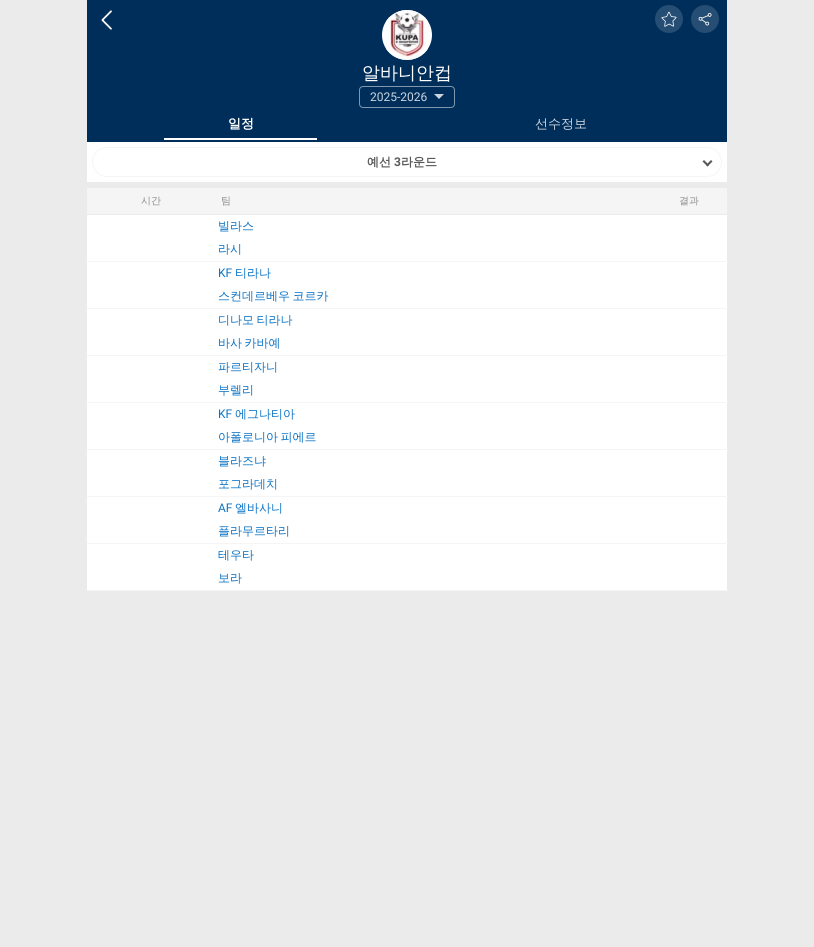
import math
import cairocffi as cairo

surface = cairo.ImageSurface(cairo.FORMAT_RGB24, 814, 947)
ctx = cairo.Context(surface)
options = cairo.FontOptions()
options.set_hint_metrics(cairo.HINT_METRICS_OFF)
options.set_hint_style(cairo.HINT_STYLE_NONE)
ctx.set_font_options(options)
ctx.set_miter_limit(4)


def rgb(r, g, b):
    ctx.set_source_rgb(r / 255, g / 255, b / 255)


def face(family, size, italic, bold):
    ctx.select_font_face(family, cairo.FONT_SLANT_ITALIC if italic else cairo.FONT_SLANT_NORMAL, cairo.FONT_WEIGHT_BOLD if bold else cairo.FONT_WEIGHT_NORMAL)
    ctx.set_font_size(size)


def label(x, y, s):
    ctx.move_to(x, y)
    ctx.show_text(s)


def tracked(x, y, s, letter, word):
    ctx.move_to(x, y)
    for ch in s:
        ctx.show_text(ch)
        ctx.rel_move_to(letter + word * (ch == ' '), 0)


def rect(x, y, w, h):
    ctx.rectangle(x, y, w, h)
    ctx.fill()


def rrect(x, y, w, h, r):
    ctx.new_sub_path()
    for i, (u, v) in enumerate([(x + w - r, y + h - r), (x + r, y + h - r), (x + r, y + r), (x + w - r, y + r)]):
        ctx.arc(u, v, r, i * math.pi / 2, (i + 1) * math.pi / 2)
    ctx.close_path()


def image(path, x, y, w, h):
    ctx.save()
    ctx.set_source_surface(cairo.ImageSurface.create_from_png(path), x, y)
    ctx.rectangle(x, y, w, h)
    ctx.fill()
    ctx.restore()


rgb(235, 235, 235)
ctx.paint()
rgb(0, 46, 90)
rect(87, 0, 640, 142)
image('image0.png', 101, 10, 11, 20)
rgb(38, 77, 115)
ctx.arc(669, 19, 14, 0, 2 * math.pi)
ctx.fill()
image('image1.png', 661, 11, 16, 16)
ctx.arc(705, 19, 14, 0, 2 * math.pi)
ctx.fill()
image('image2.png', 698, 13, 14, 13)
rgb(255, 255, 255)
ctx.arc(407, 35, 25, 0, 2 * math.pi)
ctx.fill()
image('image3.png', 385, 10, 43, 50)
face('WenQuanYi Zen Hei Medium', 18, 0, 0)
label(362, 79, '알바니안컵')
rrect(359.5, 86.5, 95, 21, 3.5)
rgb(128, 151, 173)
ctx.set_line_width(1)
ctx.stroke()
face('Roboto', 12, 0, 0)
rgb(204, 213, 222)
label(370, 101, '2025-2026')
ctx.new_path()
ctx.move_to(434, 94)
ctx.line_to(444, 94)
ctx.line_to(439, 99)
ctx.close_path()
ctx.fill()
face('WenQuanYi Zen Hei', 13, 0, 1)
rgb(255, 255, 255)
label(228, 128, '일정')
rect(164, 138, 153, 2)
face('WenQuanYi Zen Hei Medium', 13, 0, 0)
rgb(204, 213, 222)
label(535, 128, '선수정보')
rgb(255, 255, 255)
rect(87, 142, 640, 40)
rrect(92.5, 147.5, 629, 29, 14.5)
rgb(245, 245, 245)
ctx.stroke()
face('WenQuanYi Zen Hei', 12, 0, 1)
rgb(89, 89, 89)
label(367, 166, '예선')
face('Roboto', 12, 0, 1)
label(394, 166, '3')
face('WenQuanYi Zen Hei', 12, 0, 1)
label(401, 166, '라운드')
ctx.new_path()
ctx.move_to(706, 165)
ctx.line_to(711, 160)
ctx.line_to(712.5, 161.5)
ctx.line_to(707.5, 166.5)
ctx.close_path()
ctx.fill()
ctx.new_path()
ctx.move_to(702.5, 161.5)
ctx.line_to(704, 160)
ctx.line_to(709, 165)
ctx.line_to(707.5, 166.5)
ctx.close_path()
ctx.fill()
rgb(245, 245, 245)
rect(87, 188, 640, 26)
face('WenQuanYi Zen Hei Medium', 10, 0, 0)
rgb(140, 140, 140)
label(141, 204, '시간')
label(221, 204, '팀')
label(679, 204, '결과')
rgb(255, 255, 255)
rect(87, 215, 640, 46)
face('WenQuanYi Zen Hei Medium', 12, 0, 0)
rgb(11, 115, 197)
label(218, 230, '빌라스')
label(218, 253, '라시')
rgb(245, 245, 245)
rect(87, 261, 641, 1)
rgb(255, 255, 255)
rect(87, 262, 640, 46)
face('Roboto', 12, 0, 0)
rgb(11, 115, 197)
label(218, 277, 'KF')
face('WenQuanYi Zen Hei Medium', 12, 0, 0)
label(235, 277, '티라나')
tracked(218, 300, '스컨데르베우 코르카', 0, -1)
rgb(245, 245, 245)
rect(87, 308, 641, 1)
rgb(255, 255, 255)
rect(87, 309, 640, 46)
rgb(11, 115, 197)
tracked(218, 324, '디나모 티라나', 0, -1)
tracked(218, 347, '바사 카바예', 0, -1)
rgb(245, 245, 245)
rect(87, 355, 641, 1)
rgb(255, 255, 255)
rect(87, 356, 640, 46)
rgb(11, 115, 197)
label(218, 371, '파르티자니')
label(218, 394, '부렐리')
rgb(245, 245, 245)
rect(87, 402, 641, 1)
rgb(255, 255, 255)
rect(87, 403, 640, 46)
face('Roboto', 12, 0, 0)
rgb(11, 115, 197)
label(218, 418, 'KF')
face('WenQuanYi Zen Hei Medium', 12, 0, 0)
label(235, 418, '에그나티아')
tracked(218, 441, '아폴로니아 피에르', 0, -1)
rgb(245, 245, 245)
rect(87, 449, 641, 1)
rgb(255, 255, 255)
rect(87, 450, 640, 46)
rgb(11, 115, 197)
label(218, 465, '블라즈냐')
label(218, 488, '포그라데치')
rgb(245, 245, 245)
rect(87, 496, 641, 1)
rgb(255, 255, 255)
rect(87, 497, 640, 46)
face('Roboto', 12, 0, 0)
rgb(11, 115, 197)
label(218, 512, 'AF')
face('WenQuanYi Zen Hei Medium', 12, 0, 0)
label(235, 512, '엘바사니')
label(218, 535, '플라무르타리')
rgb(245, 245, 245)
rect(87, 543, 641, 1)
rgb(255, 255, 255)
rect(87, 544, 640, 46)
rgb(11, 115, 197)
label(218, 559, '테우타')
label(218, 582, '보라')
rgb(245, 245, 245)
rect(87, 590, 641, 1)
surface.write_to_png('render.png')
